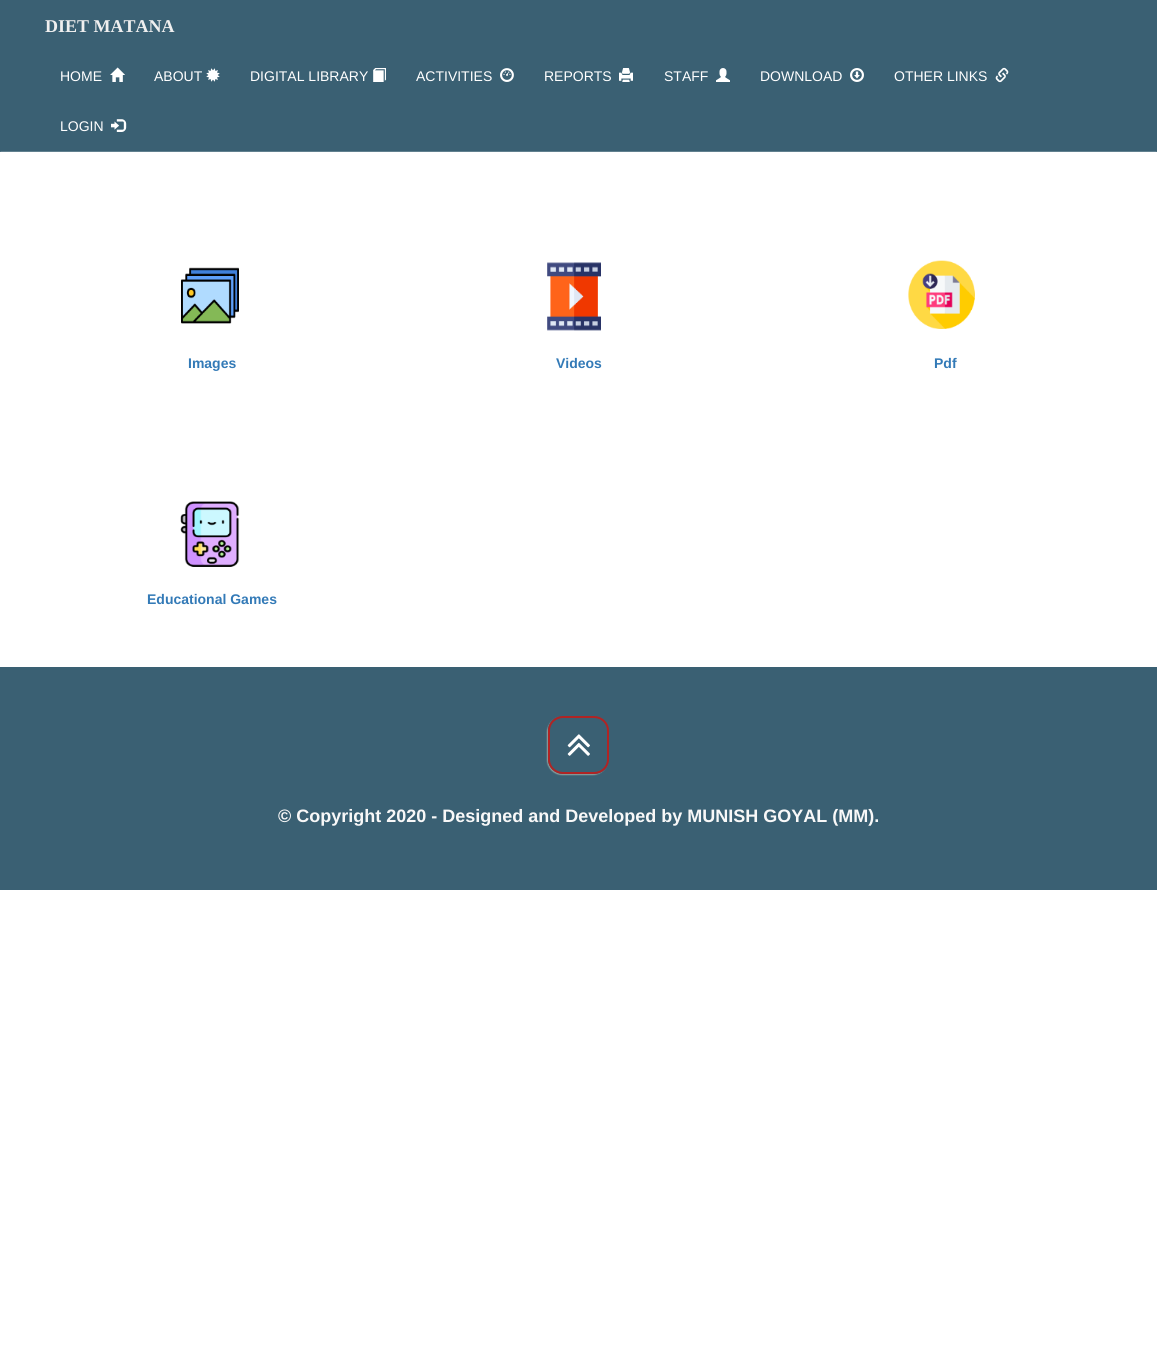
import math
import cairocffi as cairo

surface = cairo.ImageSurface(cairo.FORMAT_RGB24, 1157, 1370)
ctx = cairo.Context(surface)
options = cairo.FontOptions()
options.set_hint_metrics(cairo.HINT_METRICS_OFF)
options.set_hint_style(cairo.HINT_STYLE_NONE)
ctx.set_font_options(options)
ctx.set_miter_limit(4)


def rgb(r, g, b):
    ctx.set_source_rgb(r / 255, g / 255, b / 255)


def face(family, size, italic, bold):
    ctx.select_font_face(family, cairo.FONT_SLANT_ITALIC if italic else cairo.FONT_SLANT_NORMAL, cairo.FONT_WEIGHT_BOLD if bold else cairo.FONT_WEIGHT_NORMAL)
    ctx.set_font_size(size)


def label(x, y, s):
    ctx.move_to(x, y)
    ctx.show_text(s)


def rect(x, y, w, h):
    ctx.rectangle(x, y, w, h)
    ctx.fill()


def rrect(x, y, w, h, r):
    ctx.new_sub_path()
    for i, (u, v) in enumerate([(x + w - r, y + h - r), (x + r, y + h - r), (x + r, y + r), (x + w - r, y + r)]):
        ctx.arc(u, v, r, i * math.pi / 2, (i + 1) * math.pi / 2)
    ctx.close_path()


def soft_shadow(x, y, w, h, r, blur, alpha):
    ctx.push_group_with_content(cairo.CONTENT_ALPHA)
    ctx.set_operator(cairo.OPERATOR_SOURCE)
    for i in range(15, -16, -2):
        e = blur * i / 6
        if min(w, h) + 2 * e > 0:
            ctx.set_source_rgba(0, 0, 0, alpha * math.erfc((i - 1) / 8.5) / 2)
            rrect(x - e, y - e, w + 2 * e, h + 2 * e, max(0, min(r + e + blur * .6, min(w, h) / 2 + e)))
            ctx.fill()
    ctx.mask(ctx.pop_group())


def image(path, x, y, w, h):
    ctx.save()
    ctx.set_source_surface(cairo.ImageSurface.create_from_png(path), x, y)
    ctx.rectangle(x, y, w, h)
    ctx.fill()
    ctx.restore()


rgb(255, 255, 255)
ctx.paint()
rgb(58, 96, 115)
rect(0, 0, 1157, 152)
rgb(97, 128, 143)
ctx.new_path()
ctx.move_to(1157, 152)
ctx.line_to(0, 152)
ctx.line_to(1, 151)
ctx.line_to(1156, 151)
ctx.close_path()
ctx.fill()
face('Liberation Serif', 18, 0, 1)
rgb(239, 239, 239)
label(45, 32, 'DIET MATANA')
face('Liberation Sans', 14, 0, 0)
rgb(255, 255, 255)
label(60, 81, 'HOME')
image('image0.png', 110, 67, 15, 15)
label(154, 81, 'ABOUT')
image('image1.png', 206, 68, 14, 14)
label(250, 81, 'DIGITAL LIBRARY')
image('image2.png', 373, 68, 13, 14)
label(416, 81, 'ACTIVITIES')
image('image3.png', 500, 68, 14, 14)
label(544, 81, 'REPORTS')
image('image4.png', 619, 68, 14, 14)
label(664, 81, 'STAFF')
image('image5.png', 716, 68, 14, 14)
label(760, 81, 'DOWNLOAD')
image('image6.png', 850, 68, 14, 14)
label(894, 81, 'OTHER LINKS')
image('image7.png', 995, 67, 14, 16)
label(60, 131, 'LOGIN')
image('image8.png', 111, 119, 16, 13)
image('image9.png', 181, 267, 58, 57)
face('Liberation Sans', 14, 0, 1)
rgb(51, 122, 183)
label(188, 368, 'Images')
image('image10.png', 547, 262, 54, 69)
label(556, 368, 'Videos')
image('image11.png', 908, 260, 67, 69)
label(934, 368, 'Pdf')
image('image12.png', 180, 501, 60, 66)
label(147, 604, 'Educational Games')
rgb(58, 96, 115)
rect(0, 667, 1157, 223)
ctx.save()
ctx.set_fill_rule(cairo.FILL_RULE_EVEN_ODD)
ctx.new_path()
ctx.move_to(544, 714)
ctx.line_to(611, 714)
ctx.line_to(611, 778)
ctx.line_to(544, 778)
ctx.close_path()
ctx.move_to(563, 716)
ctx.line_to(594, 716)
ctx.curve_to(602, 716, 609, 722.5, 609, 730.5)
ctx.line_to(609, 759.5)
ctx.curve_to(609, 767.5, 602, 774, 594, 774)
ctx.line_to(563, 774)
ctx.curve_to(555, 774, 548, 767.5, 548, 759.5)
ctx.line_to(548, 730.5)
ctx.curve_to(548, 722.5, 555, 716, 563, 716)
ctx.close_path()
ctx.clip()
rgb(255, 253, 223)
soft_shadow(547, 717, 61, 58, 15, 0.5, 0.4)
ctx.restore()
ctx.new_path()
ctx.move_to(563, 717)
ctx.line_to(594, 717)
ctx.curve_to(601.5, 717, 608, 723, 608, 730.5)
ctx.line_to(608, 759.5)
ctx.curve_to(608, 767, 601.5, 773, 594, 773)
ctx.line_to(563, 773)
ctx.curve_to(555.5, 773, 549, 767, 549, 759.5)
ctx.line_to(549, 730.5)
ctx.curve_to(549, 723, 555.5, 717, 563, 717)
ctx.close_path()
rgb(176, 36, 36)
ctx.stroke()
image('image13.png', 567, 734, 23, 22)
face('Liberation Sans', 18, 0, 1)
rgb(248, 248, 248)
label(278, 822, '© Copyright 2020 - Designed and Developed by MUNISH GOYAL (MM).')
surface.write_to_png('render.png')
